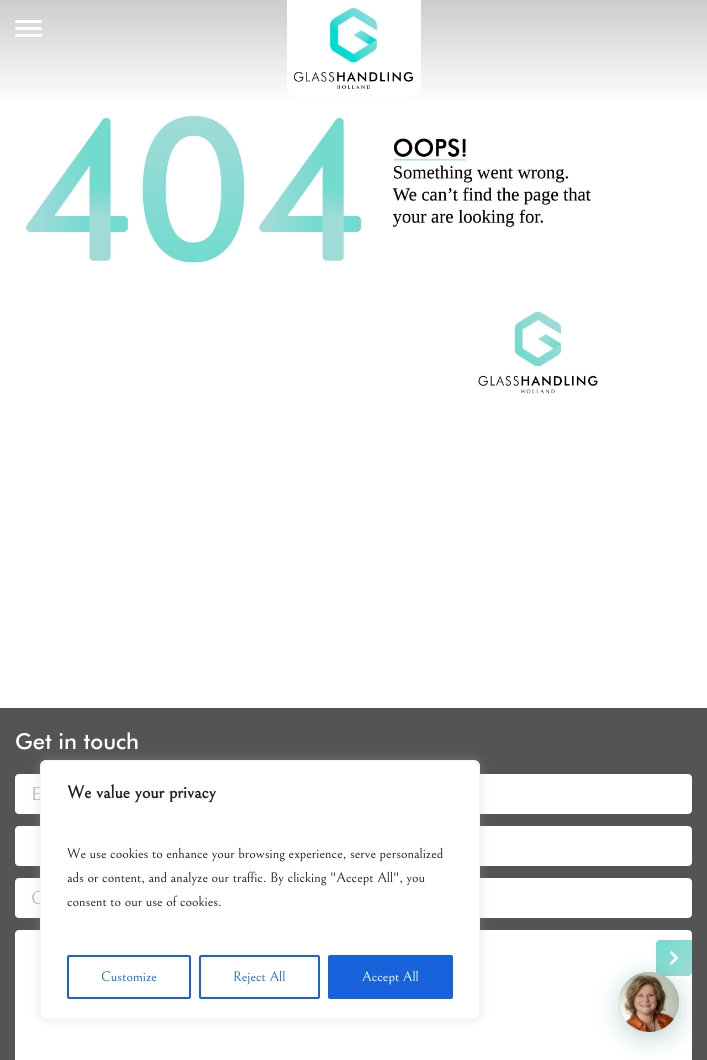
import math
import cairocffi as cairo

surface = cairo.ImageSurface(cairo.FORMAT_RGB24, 707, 1060)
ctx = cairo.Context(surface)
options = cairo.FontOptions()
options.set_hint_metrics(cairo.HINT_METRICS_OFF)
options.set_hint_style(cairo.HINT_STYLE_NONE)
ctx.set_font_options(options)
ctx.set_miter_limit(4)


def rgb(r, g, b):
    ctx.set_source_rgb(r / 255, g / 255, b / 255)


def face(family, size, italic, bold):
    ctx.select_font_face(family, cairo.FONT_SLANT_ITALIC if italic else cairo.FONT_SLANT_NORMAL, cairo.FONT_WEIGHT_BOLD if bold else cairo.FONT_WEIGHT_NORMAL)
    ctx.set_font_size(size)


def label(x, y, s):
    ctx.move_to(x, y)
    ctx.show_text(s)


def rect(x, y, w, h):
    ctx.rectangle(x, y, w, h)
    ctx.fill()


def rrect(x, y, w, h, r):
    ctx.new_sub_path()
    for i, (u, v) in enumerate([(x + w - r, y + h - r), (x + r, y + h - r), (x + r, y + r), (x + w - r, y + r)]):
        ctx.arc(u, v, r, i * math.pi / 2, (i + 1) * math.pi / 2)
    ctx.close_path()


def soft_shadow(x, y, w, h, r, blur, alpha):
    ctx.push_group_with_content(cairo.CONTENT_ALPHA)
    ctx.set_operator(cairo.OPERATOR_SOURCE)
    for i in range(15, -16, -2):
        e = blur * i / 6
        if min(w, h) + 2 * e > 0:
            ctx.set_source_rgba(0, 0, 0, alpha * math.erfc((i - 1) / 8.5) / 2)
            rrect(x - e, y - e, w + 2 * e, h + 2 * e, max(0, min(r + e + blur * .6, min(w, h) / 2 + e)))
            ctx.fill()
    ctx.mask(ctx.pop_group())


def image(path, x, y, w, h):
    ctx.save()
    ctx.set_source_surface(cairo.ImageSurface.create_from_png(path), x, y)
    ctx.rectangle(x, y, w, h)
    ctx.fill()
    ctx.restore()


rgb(255, 255, 255)
ctx.paint()
gradient = cairo.LinearGradient(354, 0, 354, 104)
gradient.add_color_stop_rgba(0, 0.8, 0.8, 0.8, 1)
gradient.add_color_stop_rgba(1, 1, 1, 1, 1)
ctx.set_source(gradient)
rect(0, 0, 707, 99)
rgb(255, 255, 255)
rrect(15, 20, 27, 3, 1.5)
ctx.fill()
rrect(15, 27, 27, 3, 1.5)
ctx.fill()
rrect(15, 34, 27, 3, 1.5)
ctx.fill()
ctx.new_path()
ctx.move_to(287, 0)
ctx.line_to(421, 0)
ctx.line_to(421, 87)
ctx.curve_to(421, 92.5, 416.5, 97, 411, 97)
ctx.line_to(297, 97)
ctx.curve_to(291.5, 97, 287, 92.5, 287, 87)
ctx.close_path()
ctx.fill()
image('image0.png', 294, 8, 119, 81)
image('image1.png', 26, 116, 572, 278)
rgb(84, 84, 84)
rect(0, 708, 707, 352)
face('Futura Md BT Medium', 22, 0, 0)
rgb(255, 255, 255)
label(15, 749, 'Get in touch')
rrect(15, 774, 677, 40, 4)
ctx.fill()
face('Bellefair', 19, 0, 0)
rgb(183, 183, 183)
label(31, 800, 'E')
rgb(255, 255, 255)
rrect(15, 826, 677, 40, 4)
ctx.fill()
rrect(15, 878, 677, 40, 4)
ctx.fill()
rgb(183, 183, 183)
label(31, 904, 'C')
rgb(255, 255, 255)
rrect(15, 930, 677, 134, 4)
ctx.fill()
gradient = cairo.LinearGradient(656, 940, 692, 976)
gradient.add_color_stop_rgba(0, 0.447, 0.859, 0.808, 1)
gradient.add_color_stop_rgba(1, 0.631, 0.859, 0.847, 1)
ctx.set_source(gradient)
ctx.new_path()
ctx.move_to(660, 940)
ctx.line_to(692, 940)
ctx.line_to(692, 972)
ctx.curve_to(692, 974, 690, 976, 688, 976)
ctx.line_to(656, 976)
ctx.line_to(656, 944)
ctx.curve_to(656, 942, 658, 940, 660, 940)
ctx.close_path()
ctx.fill()
image('image2.png', 669, 951, 9, 14)
rgb(172, 171, 171)
soft_shadow(40, 759, 440, 260, 6, 5, 0.3)
rgb(255, 255, 255)
rrect(40.5, 760.5, 439, 259, 5.5)
ctx.fill_preserve()
rgb(244, 244, 244)
ctx.set_line_width(1)
ctx.stroke()
face('Bellefair', 18, 0, 1)
rgb(33, 33, 33)
label(67, 798, 'We value your privacy')
face('Bellefair', 14, 0, 0)
label(67, 858, 'We use cookies to enhance your browsing experience, serve personalized')
label(67, 882, 'ads or content, and analyze our traffic. By clicking "Accept All", you')
label(67, 906, 'consent to our use of cookies.')
rrect(68, 956, 122, 42, 1)
rgb(24, 99, 220)
ctx.set_line_width(2)
ctx.stroke()
label(101, 981, 'Customize')
rrect(200, 956, 119, 42, 1)
ctx.stroke()
label(233, 981, 'Reject All')
rrect(329, 956, 123, 42, 1)
ctx.fill_preserve()
ctx.stroke()
rgb(255, 255, 255)
label(362, 981, 'Accept All')
rgb(7, 94, 84)
soft_shadow(620, 978, 60, 60, 30, 12, 0.24)
gradient = cairo.LinearGradient(619, 972, 679, 1032)
gradient.add_color_stop_rgba(0, 0.447, 0.859, 0.808, 1)
gradient.add_color_stop_rgba(1, 0.631, 0.859, 0.847, 1)
ctx.set_source(gradient)
ctx.arc(649, 1002, 30, 0, 2 * math.pi)
ctx.fill()
image('image3.png', 619, 972, 60, 60)
surface.write_to_png('render.png')
